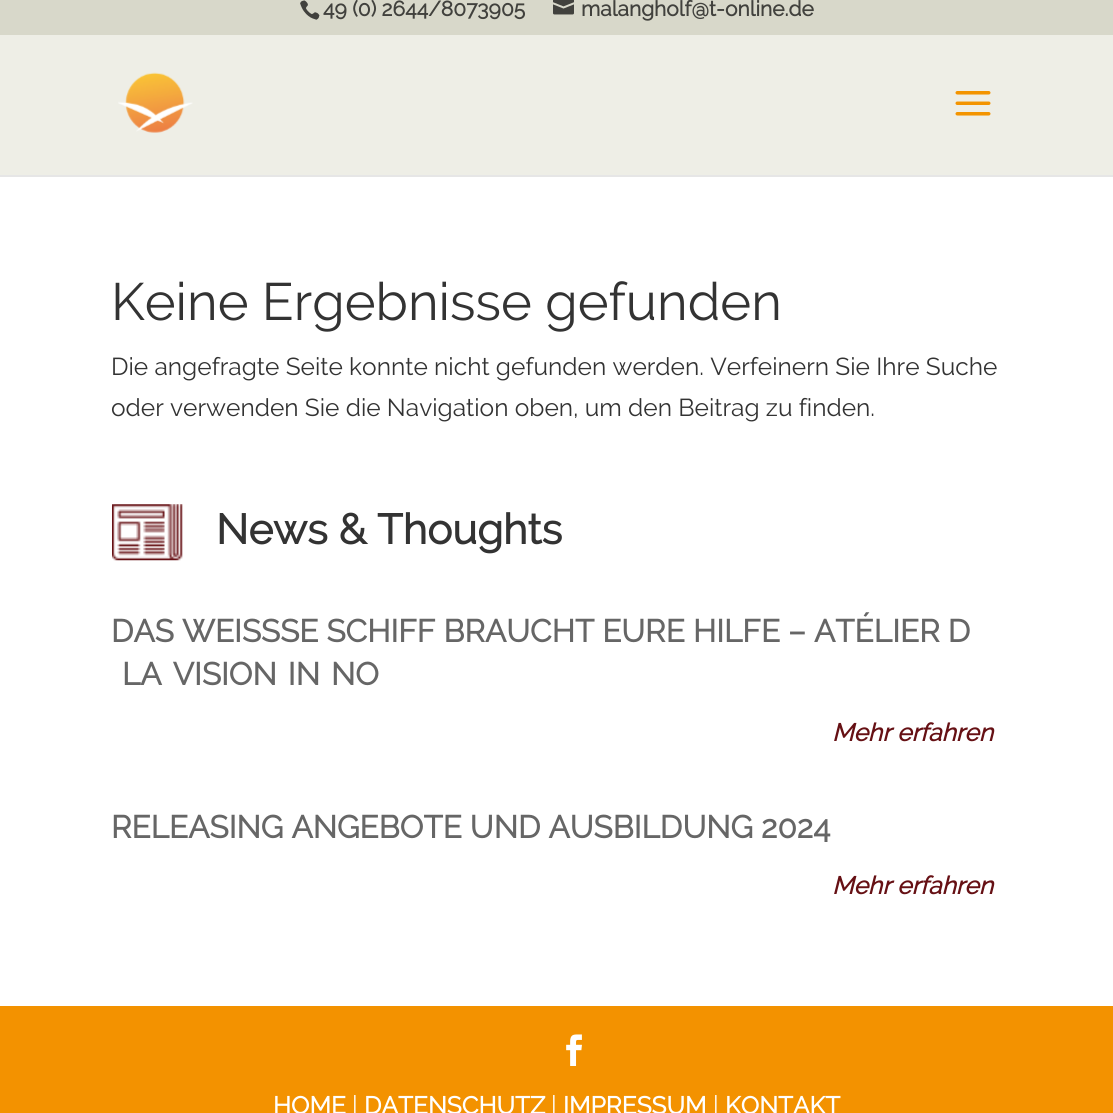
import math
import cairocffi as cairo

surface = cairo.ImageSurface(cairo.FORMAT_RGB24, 1113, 1113)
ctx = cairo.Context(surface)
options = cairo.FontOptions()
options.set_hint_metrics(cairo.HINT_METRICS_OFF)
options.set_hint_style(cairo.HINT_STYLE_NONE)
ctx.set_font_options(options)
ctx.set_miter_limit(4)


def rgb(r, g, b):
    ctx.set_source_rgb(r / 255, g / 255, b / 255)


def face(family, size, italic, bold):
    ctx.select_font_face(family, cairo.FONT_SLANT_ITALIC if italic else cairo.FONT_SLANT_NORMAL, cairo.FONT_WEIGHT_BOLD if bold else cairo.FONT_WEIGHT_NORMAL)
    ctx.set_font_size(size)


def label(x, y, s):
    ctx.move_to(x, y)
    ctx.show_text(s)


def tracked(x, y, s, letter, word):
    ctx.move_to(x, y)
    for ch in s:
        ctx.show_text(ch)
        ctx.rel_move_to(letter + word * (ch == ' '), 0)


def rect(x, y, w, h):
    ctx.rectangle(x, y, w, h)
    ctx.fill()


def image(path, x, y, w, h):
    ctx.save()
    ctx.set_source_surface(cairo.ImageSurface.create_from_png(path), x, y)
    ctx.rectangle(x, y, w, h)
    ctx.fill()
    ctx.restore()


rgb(255, 255, 255)
ctx.paint()
rgb(216, 216, 202)
rect(0, 0, 1113, 35)
image('image0.png', 300, 0, 20, 20)
face('Raleway', 21, 0, 1)
rgb(65, 65, 61)
label(323, 16, '49 (0) 2644/8073905')
image('image1.png', 553, 0, 21, 15)
label(581, 16, 'malangholf@t-online.de')
rgb(230, 230, 230)
rect(0, 175, 1113, 2)
rgb(238, 238, 230)
rect(0, 35, 1113, 140)
image('image2.png', 118, 72, 75, 61)
image('image3.png', 955, 91, 36, 25)
face('Raleway', 52.5, 0, 0)
rgb(51, 51, 51)
label(111, 320, 'Keine Ergebnisse gefunden')
face('Raleway', 24.5, 0, 0)
label(111, 375, 'Die angefragte Seite konnte nicht gefunden werden. Verfeinern Sie Ihre Suche')
label(111, 416, 'oder verwenden Sie die Navigation oben, um den Beitrag zu finden.')
image('image4.png', 112, 504, 71, 57)
face('Raleway', 42, 0, 1)
label(216, 544, 'News & Thoughts')
face('Raleway', 31.5, 0, 1)
rgb(102, 102, 102)
label(111, 642, 'DAS WEISSSE SCHIFF BRAUCHT EURE HILFE – ATÉLIER D')
tracked(122, 685, 'LA VISION IN NO', 0, 3)
face('Raleway', 24.5, 1, 1)
rgb(102, 16, 20)
label(832, 741, 'Mehr erfahren')
face('Raleway', 31.5, 0, 1)
rgb(102, 102, 102)
label(111, 838, 'RELEASING ANGEBOTE UND AUSBILDUNG 2024')
face('Raleway', 24.5, 1, 1)
rgb(102, 16, 20)
label(832, 894, 'Mehr erfahren')
rgb(243, 146, 0)
rect(0, 1006, 1113, 107)
image('image5.png', 566, 1034, 16, 32)
face('Raleway', 24.5, 0, 1)
rgb(255, 255, 255)
label(273, 1114, 'HOME')
face('Raleway', 24.5, 0, 0)
label(352, 1114, '|')
face('Raleway', 24.5, 0, 1)
label(364, 1114, 'DATENSCHUTZ')
face('Raleway', 24.5, 0, 0)
label(551, 1114, '|')
face('Raleway', 24.5, 0, 1)
label(563, 1114, 'IMPRESSUM')
face('Raleway', 24.5, 0, 0)
label(713, 1114, '|')
face('Raleway', 24.5, 0, 1)
label(725, 1114, 'KONTAKT')
surface.write_to_png('render.png')
